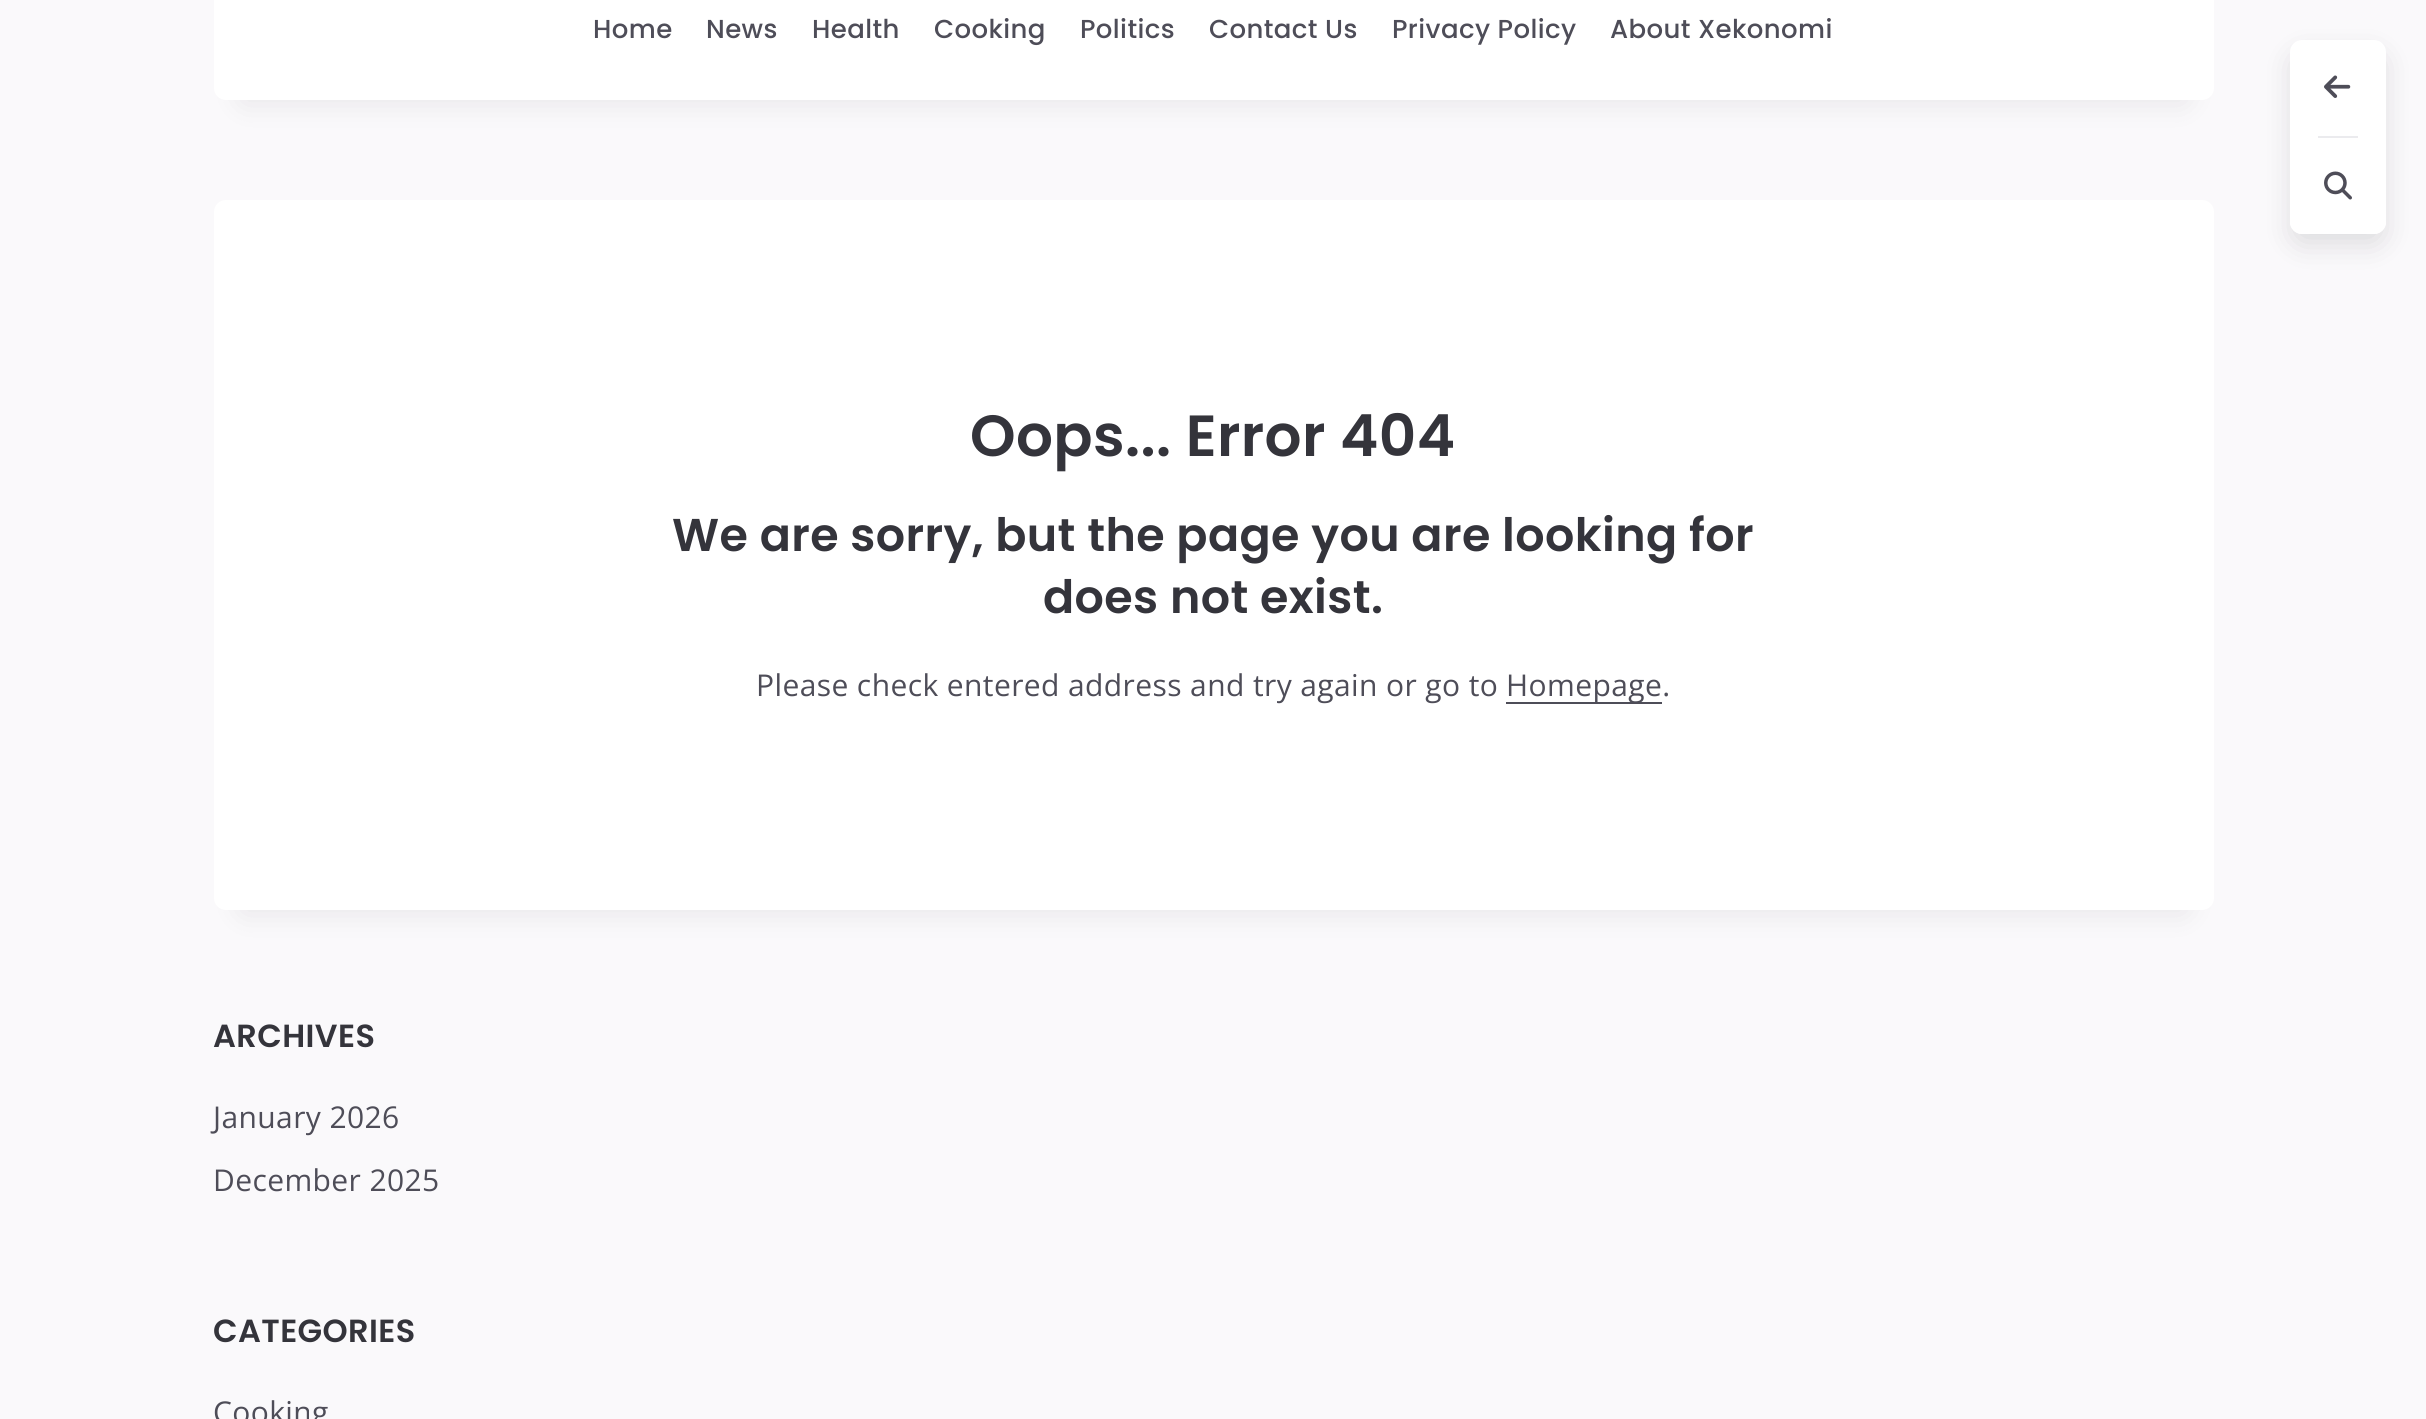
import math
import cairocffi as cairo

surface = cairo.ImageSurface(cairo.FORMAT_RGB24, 2426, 1419)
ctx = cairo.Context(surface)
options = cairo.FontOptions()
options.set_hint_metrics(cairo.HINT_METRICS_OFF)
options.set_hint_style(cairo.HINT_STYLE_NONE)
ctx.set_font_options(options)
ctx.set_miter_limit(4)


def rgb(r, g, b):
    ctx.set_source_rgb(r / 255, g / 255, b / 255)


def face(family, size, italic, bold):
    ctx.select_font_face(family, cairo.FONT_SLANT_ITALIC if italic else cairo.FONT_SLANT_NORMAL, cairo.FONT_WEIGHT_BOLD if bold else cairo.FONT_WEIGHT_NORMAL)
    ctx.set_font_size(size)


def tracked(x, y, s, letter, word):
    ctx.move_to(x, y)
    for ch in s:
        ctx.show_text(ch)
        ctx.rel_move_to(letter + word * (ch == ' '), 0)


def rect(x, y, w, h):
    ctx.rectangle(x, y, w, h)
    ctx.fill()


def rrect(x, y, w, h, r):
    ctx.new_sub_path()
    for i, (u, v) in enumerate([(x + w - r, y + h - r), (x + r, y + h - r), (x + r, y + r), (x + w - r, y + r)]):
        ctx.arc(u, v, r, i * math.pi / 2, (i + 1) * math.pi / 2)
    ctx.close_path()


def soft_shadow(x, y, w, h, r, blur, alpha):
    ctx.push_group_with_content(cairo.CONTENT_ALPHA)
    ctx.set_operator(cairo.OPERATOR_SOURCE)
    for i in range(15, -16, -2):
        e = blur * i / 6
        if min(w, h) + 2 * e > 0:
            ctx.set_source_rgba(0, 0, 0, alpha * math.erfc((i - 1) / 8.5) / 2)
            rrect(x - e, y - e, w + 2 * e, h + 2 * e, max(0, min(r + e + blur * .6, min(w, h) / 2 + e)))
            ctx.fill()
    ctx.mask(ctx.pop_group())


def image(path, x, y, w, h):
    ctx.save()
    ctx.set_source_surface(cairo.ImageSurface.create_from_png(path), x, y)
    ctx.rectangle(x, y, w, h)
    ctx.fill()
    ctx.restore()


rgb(250, 249, 251)
ctx.paint()
rgb(15, 14, 21)
soft_shadow(244, 20, 1940, 80, 0, 15, 0.1)
rgb(255, 255, 255)
rrect(214, -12, 2000, 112, 12)
ctx.fill()
face('Poppins Medium', 26, 0, 0)
rgb(78, 77, 88)
tracked(593, 38, 'Home', 0.4, 0)
tracked(706, 38, 'News', 0.4, 0)
tracked(812, 38, 'Health', 0.4, 0)
tracked(934, 38, 'Cooking', 0.4, 0)
tracked(1080, 38, 'Politics', 0.4, 0)
tracked(1209, 38, 'Contact Us', 0.4, 0)
tracked(1392, 38, 'Privacy Policy', 0.4, 0)
tracked(1610, 38, 'About Xekonomi', 0.4, 0)
rgb(15, 14, 21)
soft_shadow(244, 260, 1940, 650, 0, 15, 0.1)
rgb(255, 255, 255)
rrect(214, 200, 2000, 710, 12)
ctx.fill()
face('Poppins SemiBold', 58, 0, 0)
rgb(52, 52, 59)
tracked(970, 456, 'Oops... Error 404', 0.4, 0)
face('Poppins SemiBold', 46, 0, 0)
tracked(672, 551, 'We are sorry, but the page you are looking for', 0.4, 0)
tracked(1043, 613, 'does not exist.', 0.4, 0)
face('Open Sans', 30, 0, 0)
rgb(78, 77, 88)
tracked(756, 696, 'Please check entered address and try again or go to', 0.4, 0)
rect(1506, 702, 156, 2)
tracked(1506, 696, 'Homepage.', 0.4, 0)
face('Poppins SemiBold', 32, 0, 0)
rgb(52, 52, 59)
tracked(213, 1047, 'ARCHIVES', 0.4, 0)
face('Open Sans', 30, 0, 0)
rgb(78, 77, 88)
tracked(213, 1128, 'January 2026', 0.4, 0)
tracked(213, 1191, 'December 2025', 0.4, 0)
face('Poppins SemiBold', 32, 0, 0)
rgb(52, 52, 59)
tracked(213, 1342, 'CATEGORIES', 0.4, 0)
face('Open Sans', 30, 0, 0)
rgb(78, 77, 88)
tracked(213, 1423, 'Cooking', 0.4, 0)
rgb(15, 14, 21)
soft_shadow(2294, 56, 88, 186, 8, 15, 0.14)
rgb(255, 255, 255)
rrect(2290, 40, 96, 194, 12)
ctx.fill()
image('image0.png', 2324, 75, 27, 23)
rgb(235, 235, 238)
rect(2318, 136, 40, 2)
rgb(255, 255, 255)
rrect(2290, 138, 96, 96, 12)
ctx.fill()
image('image1.png', 2324, 171, 28, 29)
surface.write_to_png('render.png')
